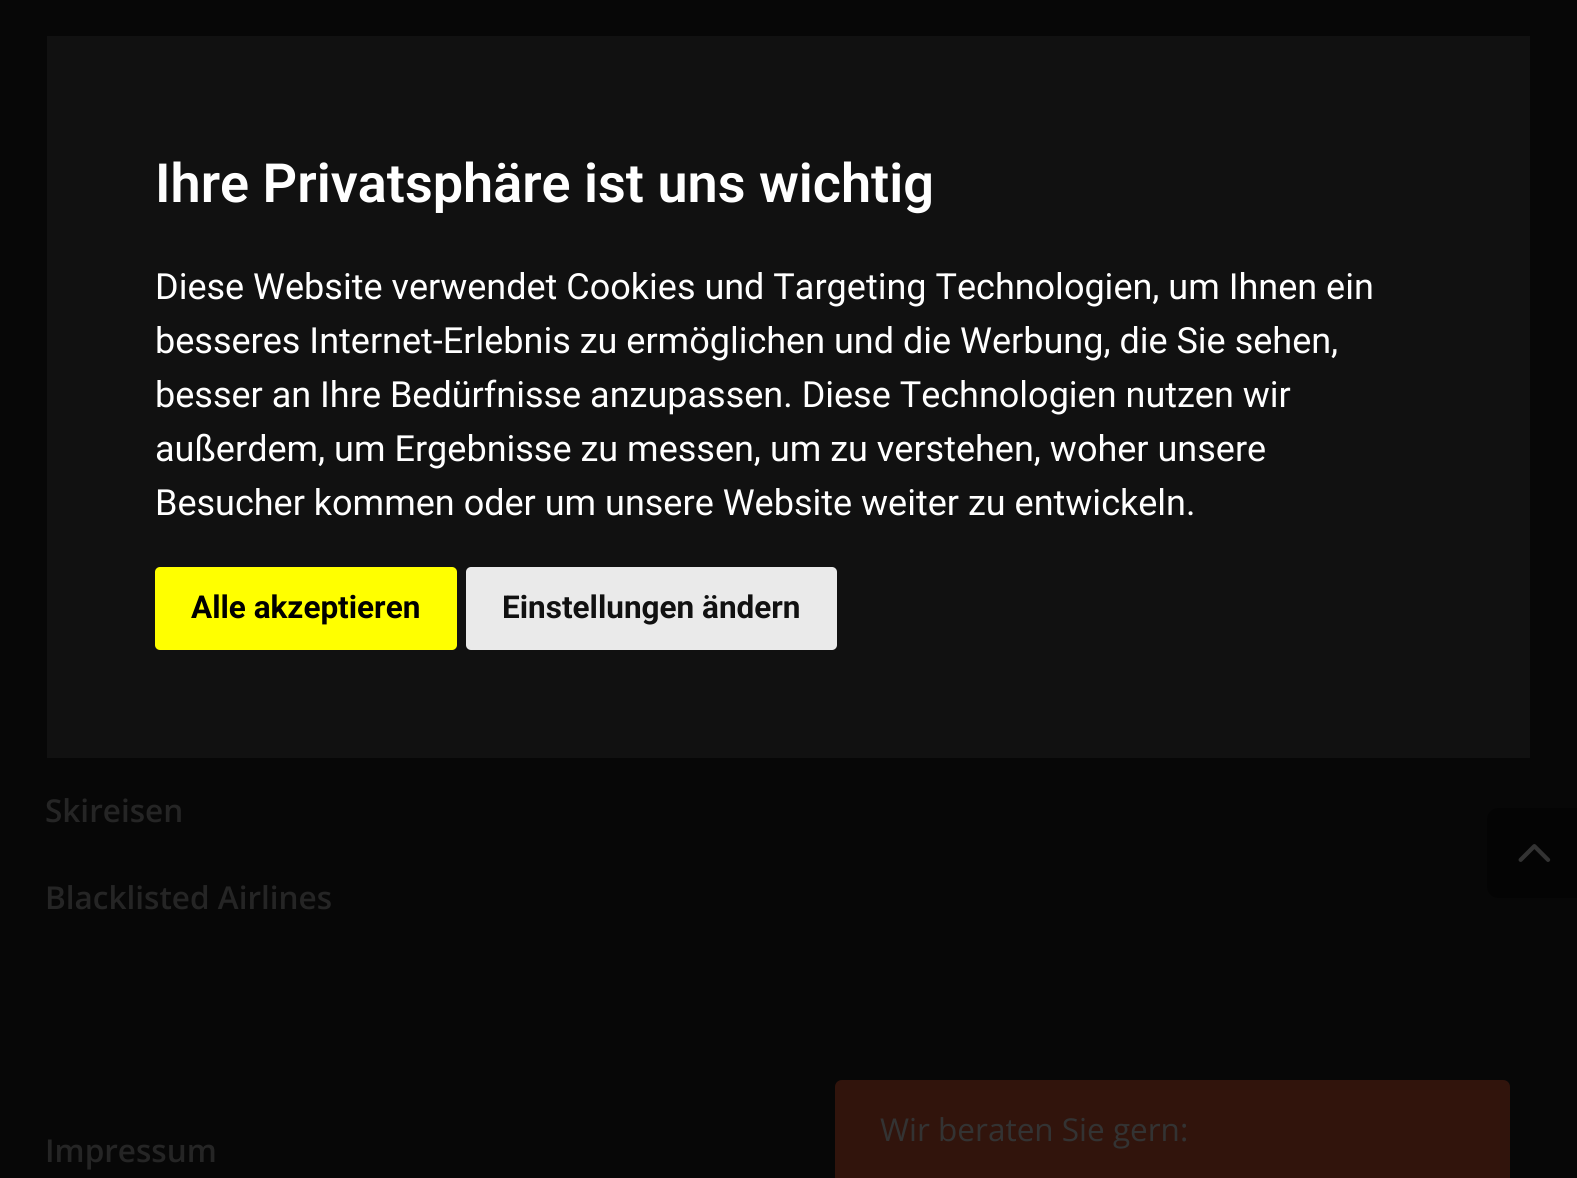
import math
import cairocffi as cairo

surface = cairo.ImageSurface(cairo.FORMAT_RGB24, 1577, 1178)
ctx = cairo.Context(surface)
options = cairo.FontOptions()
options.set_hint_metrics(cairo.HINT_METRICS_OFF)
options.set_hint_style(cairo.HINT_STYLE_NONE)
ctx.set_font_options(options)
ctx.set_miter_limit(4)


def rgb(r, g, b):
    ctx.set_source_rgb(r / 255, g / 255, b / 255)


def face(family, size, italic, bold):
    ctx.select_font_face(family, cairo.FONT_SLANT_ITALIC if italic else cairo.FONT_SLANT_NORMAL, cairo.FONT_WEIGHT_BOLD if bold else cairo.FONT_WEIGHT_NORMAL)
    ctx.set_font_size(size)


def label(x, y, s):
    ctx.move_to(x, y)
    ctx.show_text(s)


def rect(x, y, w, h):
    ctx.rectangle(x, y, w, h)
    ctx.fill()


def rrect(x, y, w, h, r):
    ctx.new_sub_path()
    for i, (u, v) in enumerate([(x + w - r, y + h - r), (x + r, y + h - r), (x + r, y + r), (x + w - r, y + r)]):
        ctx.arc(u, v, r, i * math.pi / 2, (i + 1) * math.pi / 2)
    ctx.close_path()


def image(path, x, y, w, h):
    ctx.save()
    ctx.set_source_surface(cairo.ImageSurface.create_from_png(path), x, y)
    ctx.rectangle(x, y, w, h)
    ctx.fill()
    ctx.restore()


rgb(7, 7, 7)
ctx.paint()
rgb(17, 17, 17)
rect(47, 36, 1483, 722)
face('Roboto SemiBold', 54, 0, 0)
rgb(255, 255, 255)
label(155, 202, 'Ihre Privatsphäre ist uns wichtig')
face('Roboto', 36, 0, 0)
label(155, 299, 'Diese Website verwendet Cookies und Targeting Technologien, um Ihnen ein')
label(155, 353, 'besseres Internet-Erlebnis zu ermöglichen und die Werbung, die Sie sehen,')
label(155, 407, 'besser an Ihre Bedürfnisse anzupassen. Diese Technologien nutzen wir')
label(155, 461, 'außerdem, um Ergebnisse zu messen, um zu verstehen, woher unsere')
label(155, 515, 'Besucher kommen oder um unsere Website weiter zu entwickeln.')
rgb(255, 255, 0)
rrect(155, 567, 302, 83, 5)
ctx.fill()
face('Roboto', 31.5, 0, 1)
rgb(0, 0, 0)
label(191, 618, 'Alle akzeptieren')
rgb(234, 234, 234)
rrect(466, 567, 371, 83, 5)
ctx.fill()
rgb(17, 17, 17)
label(502, 618, 'Einstellungen ändern')
face('Open Sans SemiBold', 31.5, 0, 0)
rgb(37, 37, 37)
label(45, 822, 'Skireisen')
label(45, 909, 'Blacklisted Airlines')
label(45, 1162, 'Impressum')
ctx.set_source_rgba(0, 0, 0, 0.4)
ctx.new_path()
ctx.move_to(1498, 808)
ctx.line_to(1577, 808)
ctx.line_to(1577, 898)
ctx.line_to(1498, 898)
ctx.curve_to(1492, 898, 1487, 893, 1487, 887)
ctx.line_to(1487, 819)
ctx.curve_to(1487, 813, 1492, 808, 1498, 808)
ctx.close_path()
ctx.fill()
image('image0.png', 1518, 844, 33, 18)
rgb(49, 20, 12)
ctx.new_path()
ctx.move_to(842, 1080)
ctx.line_to(1503, 1080)
ctx.curve_to(1507, 1080, 1510, 1083, 1510, 1087)
ctx.line_to(1510, 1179)
ctx.line_to(835, 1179)
ctx.line_to(835, 1087)
ctx.curve_to(835, 1083, 838, 1080, 842, 1080)
ctx.close_path()
ctx.fill()
face('Open Sans', 31.5, 0, 0)
rgb(51, 51, 51)
label(880, 1141, 'Wir beraten Sie gern:')
surface.write_to_png('render.png')
